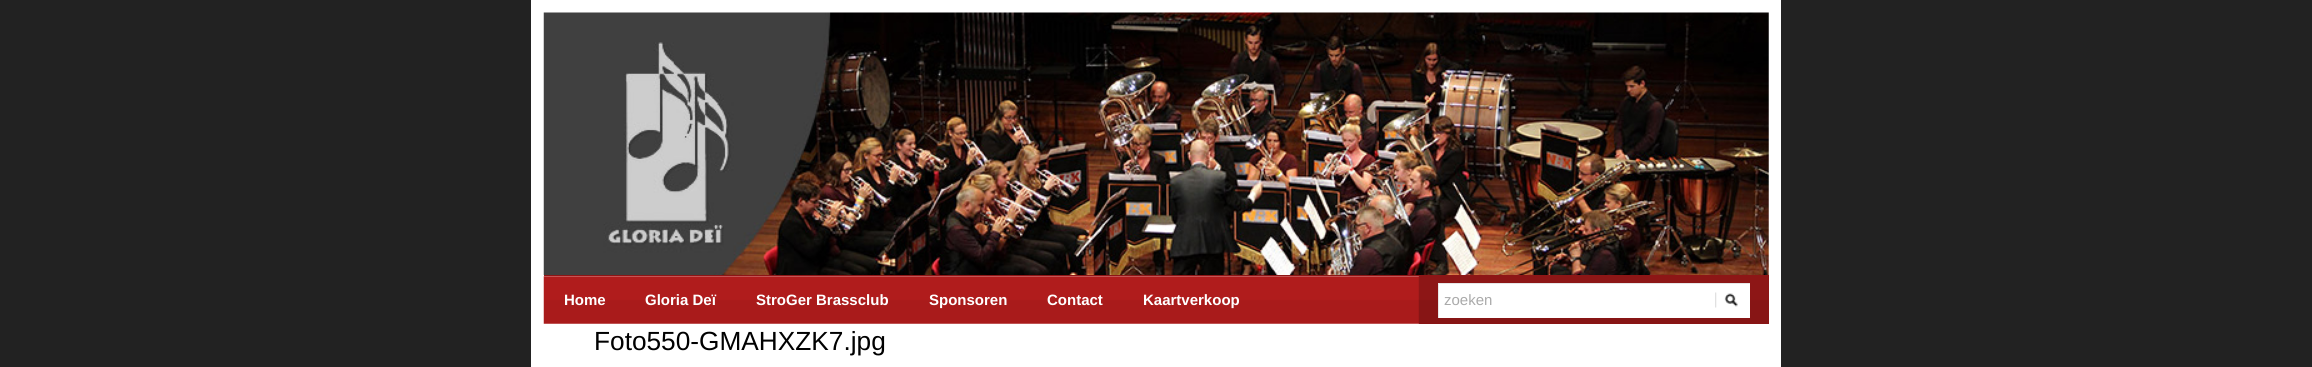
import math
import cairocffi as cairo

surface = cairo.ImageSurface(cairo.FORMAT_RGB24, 2312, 367)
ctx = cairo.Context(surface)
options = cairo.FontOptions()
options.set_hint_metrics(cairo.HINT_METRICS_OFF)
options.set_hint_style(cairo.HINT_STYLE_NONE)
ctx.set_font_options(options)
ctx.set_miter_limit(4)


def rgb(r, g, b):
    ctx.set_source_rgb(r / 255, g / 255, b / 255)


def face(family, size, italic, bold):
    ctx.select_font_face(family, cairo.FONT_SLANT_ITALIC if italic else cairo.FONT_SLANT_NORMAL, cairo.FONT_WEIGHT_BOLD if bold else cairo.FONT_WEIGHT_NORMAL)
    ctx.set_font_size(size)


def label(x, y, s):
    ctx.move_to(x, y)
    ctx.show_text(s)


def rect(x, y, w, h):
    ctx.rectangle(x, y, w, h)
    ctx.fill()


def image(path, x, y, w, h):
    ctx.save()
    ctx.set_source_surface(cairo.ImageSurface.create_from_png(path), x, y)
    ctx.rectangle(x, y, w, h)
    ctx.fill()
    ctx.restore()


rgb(34, 34, 34)
ctx.paint()
rgb(255, 255, 255)
rect(531, 0, 1250, 367)
rgb(141, 22, 22)
rect(544, 275, 1225, 1)
image('image0.png', 543, 12, 1226, 263)
image('image1.png', 543, 276, 876, 48)
face('Liberation Sans', 15, 0, 1)
rgb(255, 255, 255)
label(564, 305, 'Home')
label(645, 305, 'Gloria Deï')
label(756, 305, 'StroGer Brassclub')
label(929, 305, 'Sponsoren')
label(1047, 305, 'Contact')
label(1143, 305, 'Kaartverkoop')
rgb(141, 22, 22)
rect(1419, 276, 350, 48)
image('image2.png', 1418, 276, 351, 48)
rgb(255, 255, 255)
rect(1439, 284, 311, 34)
ctx.save()
ctx.rectangle(1438, 283, 312, 35)
ctx.clip()
rgb(230, 230, 230)
ctx.set_fill_rule(cairo.FILL_RULE_EVEN_ODD)
ctx.new_path()
ctx.move_to(1314, 159)
ctx.line_to(1874, 159)
ctx.line_to(1874, 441)
ctx.line_to(1314, 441)
ctx.close_path()
ctx.move_to(1439, 284)
ctx.line_to(1751, 284)
ctx.line_to(1751, 319)
ctx.line_to(1439, 319)
ctx.close_path()
ctx.fill()
ctx.restore()
face('Liberation Sans', 15, 0, 0)
rgb(170, 170, 170)
label(1444, 305, 'zoeken')
image('image3.png', 1715, 292, 23, 16)
face('Liberation Sans', 26.25, 0, 0)
rgb(0, 0, 0)
label(594, 350, 'Foto550-GMAHXZK7.jpg')
surface.write_to_png('render.png')
